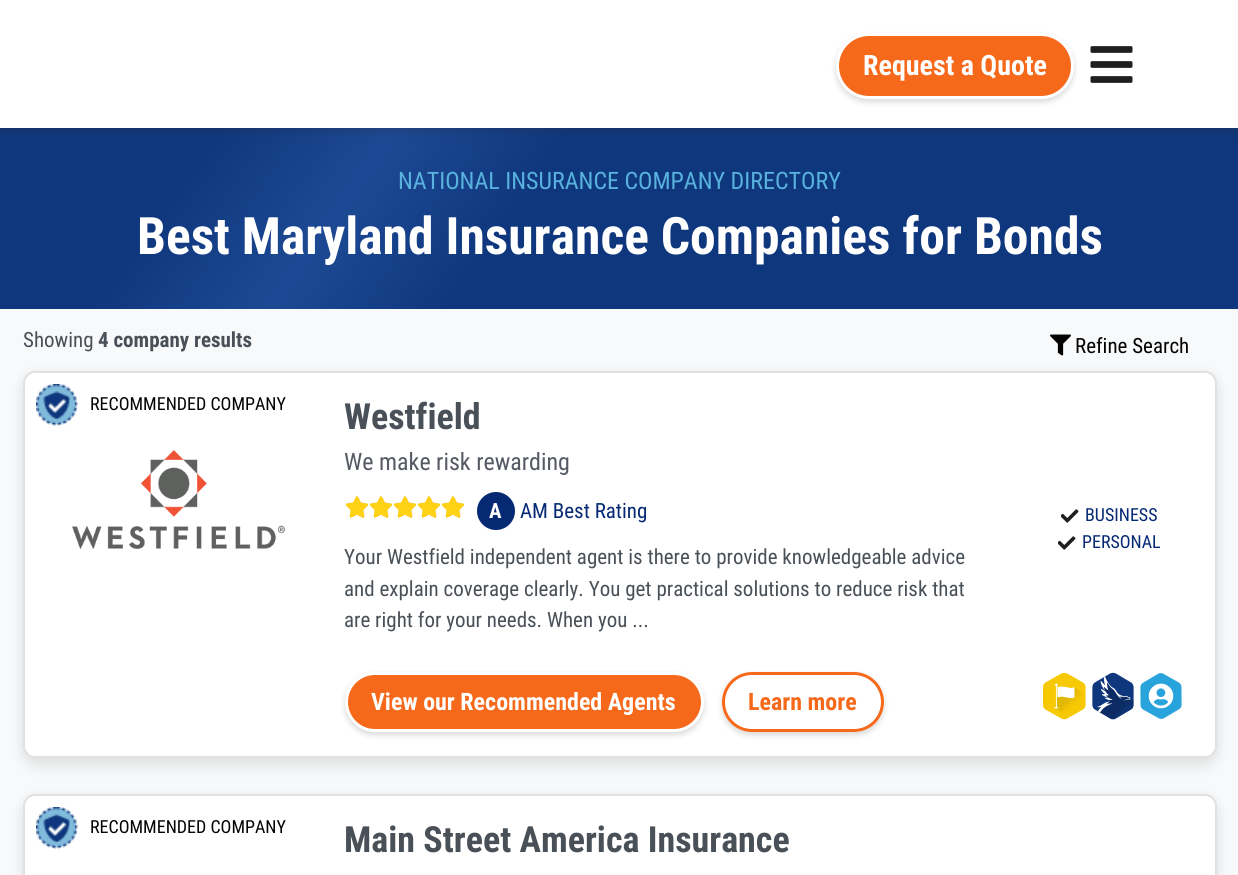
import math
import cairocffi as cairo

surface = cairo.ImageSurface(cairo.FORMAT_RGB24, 1238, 875)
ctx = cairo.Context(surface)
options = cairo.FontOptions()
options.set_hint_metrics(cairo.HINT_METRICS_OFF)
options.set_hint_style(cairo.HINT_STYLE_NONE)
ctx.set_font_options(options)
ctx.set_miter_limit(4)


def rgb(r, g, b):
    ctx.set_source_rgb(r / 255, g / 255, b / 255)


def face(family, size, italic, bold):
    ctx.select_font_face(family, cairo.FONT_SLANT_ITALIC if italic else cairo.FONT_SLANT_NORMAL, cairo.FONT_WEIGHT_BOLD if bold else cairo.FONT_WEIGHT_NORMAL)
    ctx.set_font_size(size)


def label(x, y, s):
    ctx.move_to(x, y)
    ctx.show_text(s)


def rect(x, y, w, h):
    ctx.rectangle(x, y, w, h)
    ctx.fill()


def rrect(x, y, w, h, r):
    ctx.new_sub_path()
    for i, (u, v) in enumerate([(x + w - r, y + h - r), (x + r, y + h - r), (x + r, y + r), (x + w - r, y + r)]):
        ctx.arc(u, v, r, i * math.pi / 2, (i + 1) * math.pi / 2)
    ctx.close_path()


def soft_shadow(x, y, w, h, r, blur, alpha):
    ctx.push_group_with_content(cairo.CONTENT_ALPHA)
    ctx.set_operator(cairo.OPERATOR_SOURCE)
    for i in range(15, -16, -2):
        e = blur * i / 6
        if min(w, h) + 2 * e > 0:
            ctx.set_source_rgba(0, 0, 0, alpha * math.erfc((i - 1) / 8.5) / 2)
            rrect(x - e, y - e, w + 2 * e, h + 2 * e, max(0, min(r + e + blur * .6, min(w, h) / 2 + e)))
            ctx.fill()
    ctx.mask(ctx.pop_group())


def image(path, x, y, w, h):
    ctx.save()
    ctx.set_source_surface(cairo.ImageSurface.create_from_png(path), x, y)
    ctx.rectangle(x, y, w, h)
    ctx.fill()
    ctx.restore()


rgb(248, 249, 250)
ctx.paint()
gradient = cairo.LinearGradient(161, -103, 1078, 539)
gradient.add_color_stop_rgba(0, 0.059, 0.216, 0.49, 1)
gradient.add_color_stop_rgba(0.16, 0.059, 0.216, 0.49, 1)
gradient.add_color_stop_rgba(0.29, 0.114, 0.286, 0.58, 1)
gradient.add_color_stop_rgba(0.42, 0.059, 0.216, 0.49, 1)
gradient.add_color_stop_rgba(1, 0.059, 0.216, 0.49, 1)
ctx.set_source(gradient)
rect(0, 128, 1238, 181)
rgb(41, 41, 41)
soft_shadow(0, 3, 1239, 128, 0, 5, 0.25)
rgb(255, 255, 255)
rect(0, 0, 1238, 128)
rgb(0, 0, 0)
soft_shadow(836, 36, 238, 66, 33, 3, 0.15)
rgb(246, 105, 26)
rrect(837.5, 34.5, 235, 63, 31.5)
ctx.fill_preserve()
rgb(255, 255, 255)
ctx.set_line_width(3)
ctx.stroke()
face('Roboto Condensed', 28, 0, 1)
label(863, 75, 'Request a Quote')
image('image0.png', 1090, 46, 43, 37)
face('Roboto Condensed', 24, 0, 0)
rgb(88, 178, 221)
label(398, 189, 'NATIONAL INSURANCE COMPANY DIRECTORY')
face('Roboto Condensed', 51.6, 0, 1)
rgb(255, 255, 255)
label(137, 254, 'Best Maryland Insurance Companies for Bonds')
face('Roboto Condensed', 21, 0, 0)
rgb(73, 80, 87)
label(23, 347, 'Showing')
face('Roboto Condensed', 21, 0, 1)
label(98, 347, '4 company results')
image('image1.png', 1050, 334, 21, 22)
face('Roboto Condensed', 21, 0, 0)
rgb(3, 3, 3)
label(1075, 353, 'Refine Search')
rgb(0, 0, 0)
soft_shadow(23, 371, 1194, 387, 12, 4.5, 0.05)
soft_shadow(23, 380, 1194, 387, 12, 7.5, 0.08)
rgb(255, 255, 255)
rrect(23, 371, 1194, 387, 12)
ctx.fill()
rrect(24, 372, 1192, 385, 11)
ctx.set_source_rgba(0, 0, 0, 0.12)
ctx.set_line_width(2)
ctx.stroke()
image('image2.png', 36, 384, 42, 42)
face('Roboto Condensed', 18, 0, 0)
rgb(3, 3, 3)
label(90, 410, 'RECOMMENDED COMPANY')
image('image3.png', 72, 450, 213, 99)
face('Roboto Condensed', 36, 0, 1)
rgb(73, 80, 87)
label(344, 429, 'Westfield')
face('Roboto Condensed', 24, 0, 0)
rgb(84, 89, 99)
label(344, 470, 'We make risk rewarding')
image('image5.png', 346, 496, 118, 22)
image('image4.png', 345, 496, 120, 22)
rgb(6, 41, 116)
ctx.arc(496, 511, 19, 0, 2 * math.pi)
ctx.fill()
face('Roboto Condensed', 21, 0, 1)
rgb(255, 255, 255)
label(489, 518, 'A')
face('Roboto Condensed', 21, 0, 0)
rgb(6, 41, 116)
label(520, 518, 'AM Best Rating')
rgb(73, 80, 87)
label(344, 564, 'Your Westfield independent agent is there to provide knowledgeable advice')
label(344, 596, 'and explain coverage clearly. You get practical solutions to reduce risk that')
label(344, 627, 'are right for your needs. When you ...')
image('image6.png', 1061, 509, 18, 14)
face('Roboto Condensed', 18, 0, 0)
rgb(6, 41, 116)
label(1085, 521, 'BUSINESS')
image('image6.png', 1058, 536, 18, 14)
label(1082, 548, 'PERSONAL')
rgb(0, 0, 0)
soft_shadow(345, 675, 359, 60, 30, 3, 0.15)
rgb(246, 105, 26)
rrect(346.5, 673.5, 356, 57, 28.5)
ctx.fill_preserve()
rgb(255, 255, 255)
ctx.set_line_width(3)
ctx.stroke()
face('Roboto Condensed', 24, 0, 1)
label(371, 710, 'View our Recommended Agents')
ctx.save()
ctx.set_fill_rule(cairo.FILL_RULE_EVEN_ODD)
ctx.new_path()
ctx.move_to(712, 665)
ctx.line_to(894, 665)
ctx.line_to(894, 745)
ctx.line_to(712, 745)
ctx.close_path()
ctx.move_to(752, 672)
ctx.line_to(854, 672)
ctx.curve_to(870.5, 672, 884, 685.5, 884, 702)
ctx.curve_to(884, 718.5, 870.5, 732, 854, 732)
ctx.line_to(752, 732)
ctx.curve_to(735.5, 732, 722, 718.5, 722, 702)
ctx.curve_to(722, 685.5, 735.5, 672, 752, 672)
ctx.close_path()
ctx.clip()
rgb(0, 0, 0)
soft_shadow(722, 675, 162, 60, 30, 3, 0.15)
ctx.restore()
rrect(723.5, 673.5, 159, 57, 28.5)
rgb(246, 105, 26)
ctx.stroke()
label(748, 710, 'Learn more')
image('image7.png', 1043, 672, 43, 48)
image('image8.png', 1092, 672, 42, 48)
image('image9.png', 1140, 673, 42, 46)
rgb(0, 0, 0)
soft_shadow(23, 794, 1194, 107, 12, 4.5, 0.05)
soft_shadow(23, 803, 1194, 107, 12, 7.5, 0.08)
rgb(255, 255, 255)
rrect(23, 794, 1194, 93, 12)
ctx.fill()
rrect(24, 795, 1192, 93, 11)
ctx.set_source_rgba(0, 0, 0, 0.12)
ctx.set_line_width(2)
ctx.stroke()
image('image2.png', 36, 807, 42, 42)
face('Roboto Condensed', 18, 0, 0)
rgb(3, 3, 3)
label(90, 833, 'RECOMMENDED COMPANY')
face('Roboto Condensed', 36, 0, 1)
rgb(73, 80, 87)
label(344, 852, 'Main Street America Insurance')
surface.write_to_png('render.png')
